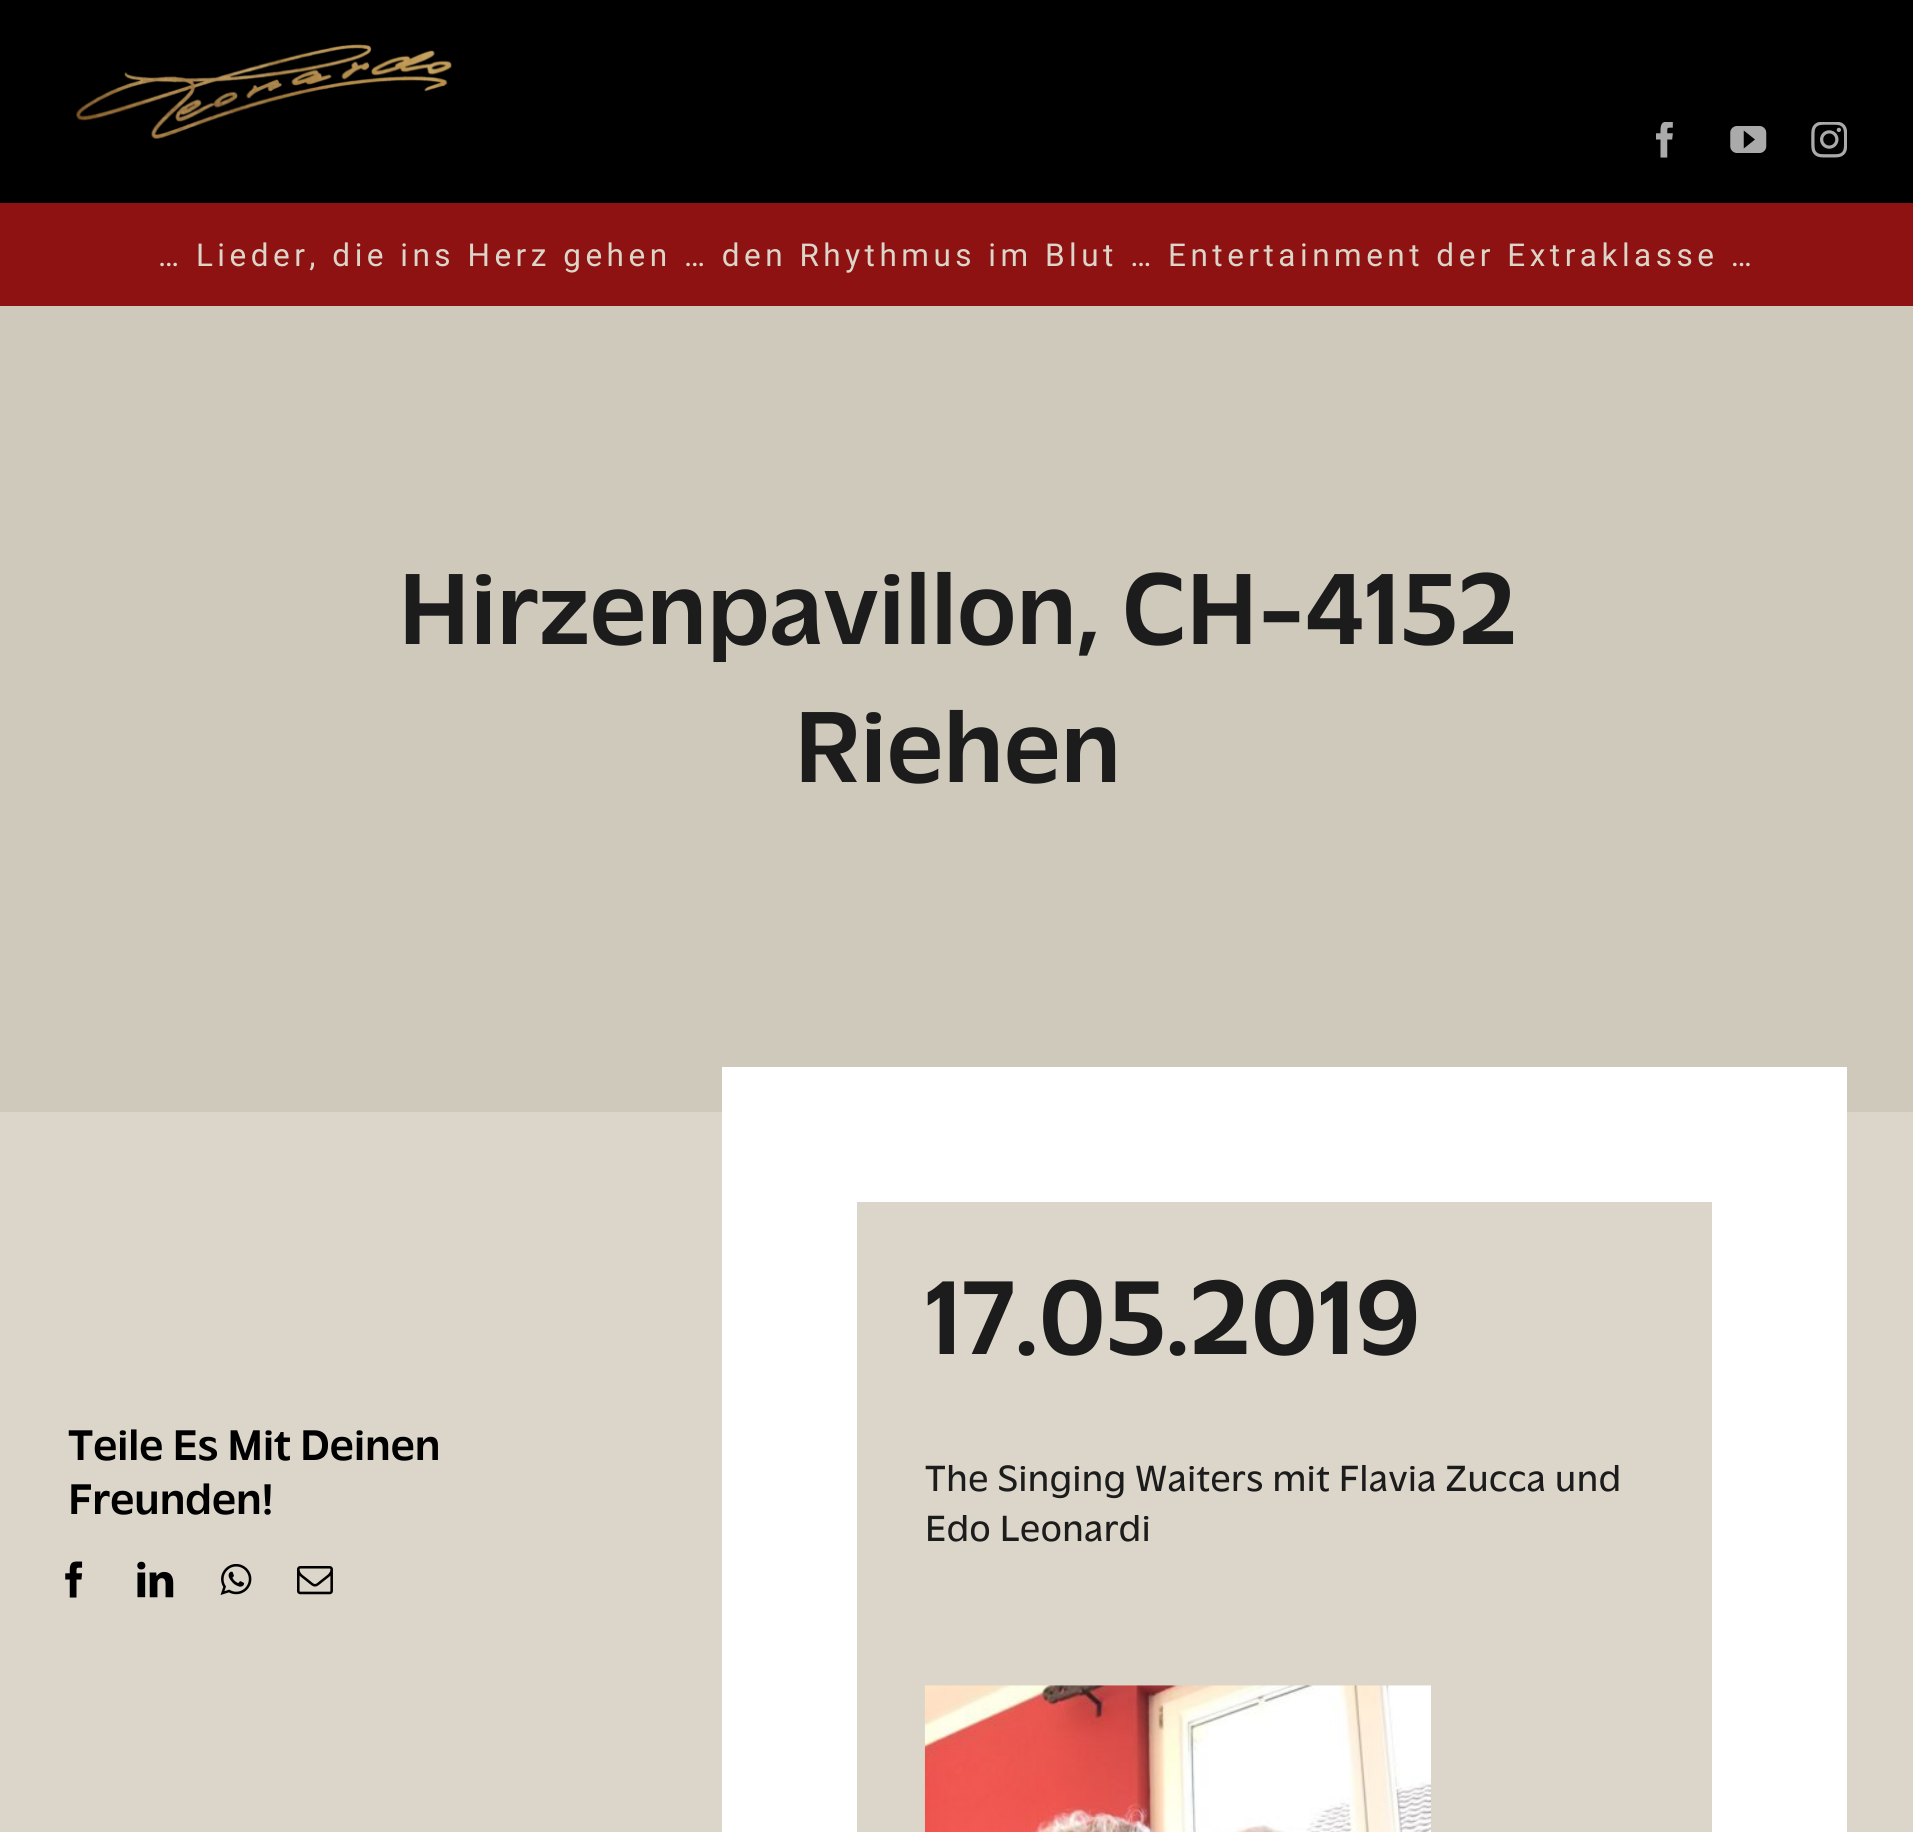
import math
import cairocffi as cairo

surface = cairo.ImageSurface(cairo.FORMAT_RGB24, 1913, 1832)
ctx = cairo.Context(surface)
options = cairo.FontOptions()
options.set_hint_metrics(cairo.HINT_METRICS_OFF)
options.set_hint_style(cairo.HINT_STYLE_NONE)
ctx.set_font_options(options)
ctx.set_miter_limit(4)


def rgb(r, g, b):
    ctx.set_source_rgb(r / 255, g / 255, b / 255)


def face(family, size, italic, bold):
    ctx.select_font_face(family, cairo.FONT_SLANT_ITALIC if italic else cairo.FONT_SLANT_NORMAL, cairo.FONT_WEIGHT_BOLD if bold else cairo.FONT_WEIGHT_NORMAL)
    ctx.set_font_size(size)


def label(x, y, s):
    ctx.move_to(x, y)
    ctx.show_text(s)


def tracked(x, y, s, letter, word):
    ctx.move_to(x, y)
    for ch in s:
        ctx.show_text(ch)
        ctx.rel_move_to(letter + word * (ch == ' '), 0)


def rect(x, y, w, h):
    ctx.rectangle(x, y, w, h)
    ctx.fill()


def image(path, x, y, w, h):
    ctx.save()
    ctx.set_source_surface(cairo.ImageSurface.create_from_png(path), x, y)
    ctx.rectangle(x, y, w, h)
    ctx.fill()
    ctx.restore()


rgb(142, 18, 18)
ctx.paint()
rgb(0, 0, 0)
rect(0, 0, 1913, 203)
image('image0.png', 76, 44, 376, 95)
image('image1.png', 1656, 122, 17, 36)
image('image2.png', 1730, 126, 37, 27)
image('image3.png', 1811, 122, 36, 36)
face('Roboto', 31.5, 0, 0)
rgb(219, 214, 201)
tracked(158, 266, '… Lieder, die ins Herz gehen … den Rhythmus im Blut … Entertainment der Extraklasse …', 4.5, 0)
rgb(206, 201, 186)
rect(0, 306, 1913, 806)
face('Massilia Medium', 106, 0, 0)
rgb(28, 28, 28)
label(398, 644, 'Hirzenpavillon, CH-4152')
label(794, 782, 'Riehen')
rgb(219, 214, 201)
rect(0, 1112, 1913, 720)
face('Massilia Medium', 45, 0, 0)
rgb(0, 0, 0)
label(68, 1460, 'Teile Es Mit Deinen')
label(68, 1514, 'Freunden!')
image('image4.png', 65, 1561, 18, 37)
image('image5.png', 137, 1561, 37, 37)
image('image6.png', 220, 1564, 32, 31)
image('image7.png', 297, 1566, 36, 29)
rgb(255, 255, 255)
rect(722, 1067, 1125, 765)
rgb(219, 214, 201)
rect(857, 1202, 855, 630)
face('Massilia Medium', 110, 0, 0)
rgb(28, 28, 28)
label(925, 1354, '17.05.2019')
face('Massilia Light', 38.25, 0, 0)
tracked(925, 1491, 'The Singing Waiters mit Flavia Zucca und', 0.55, 0)
tracked(925, 1541, 'Edo Leonardi', 0.55, 0)
image('image8.png', 924, 1685, 507, 147)
surface.write_to_png('render.png')
